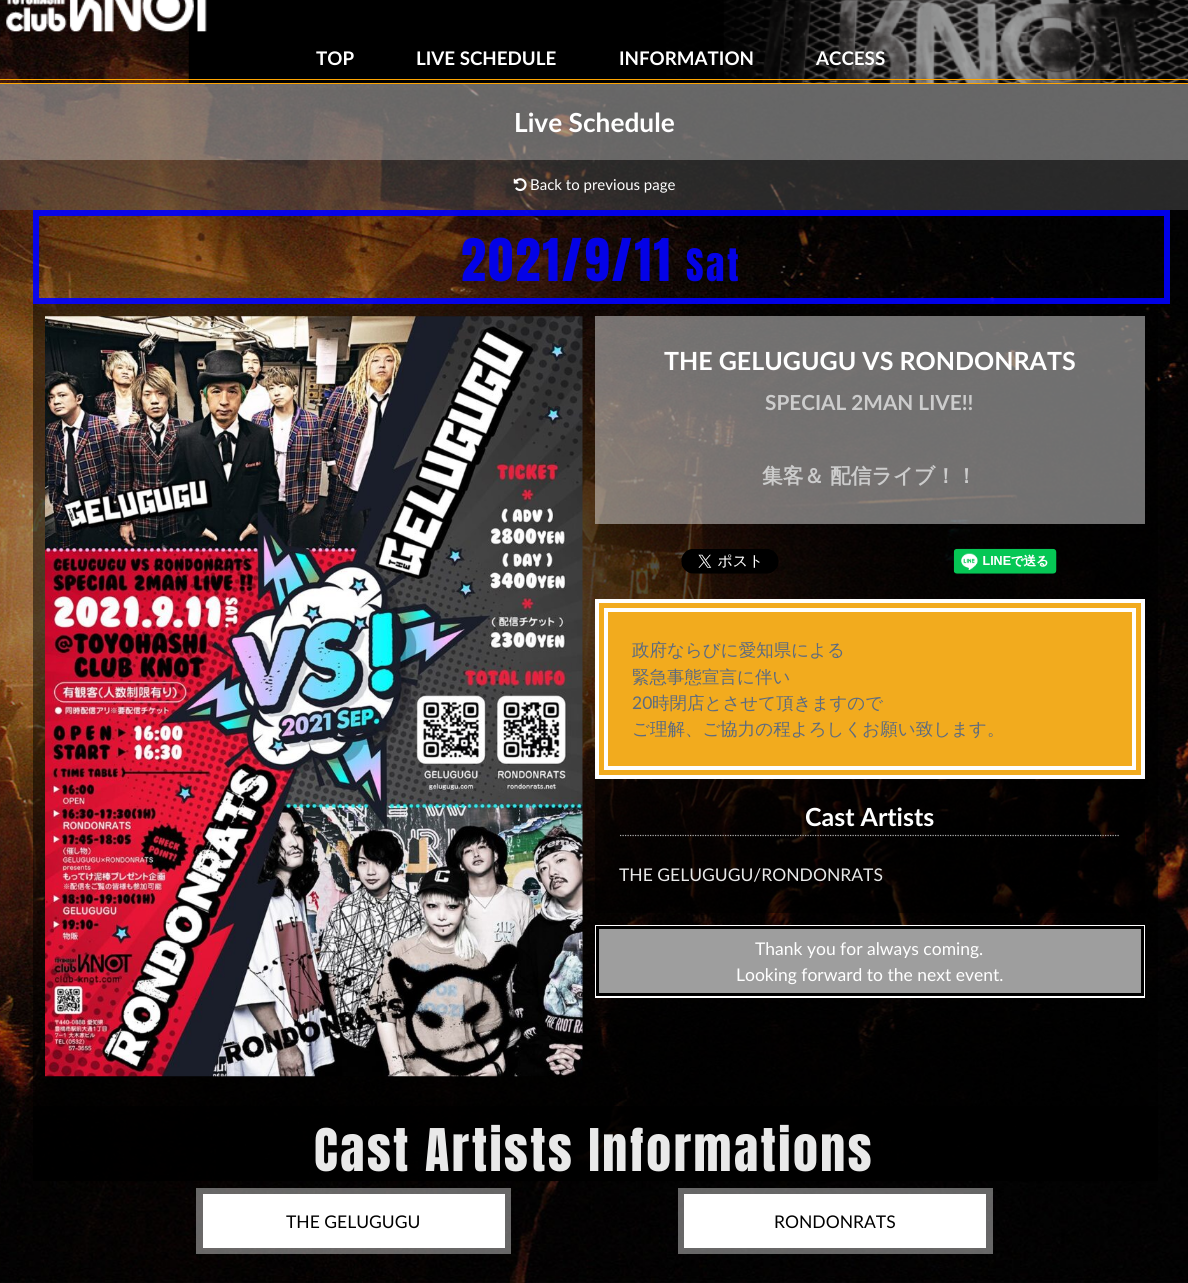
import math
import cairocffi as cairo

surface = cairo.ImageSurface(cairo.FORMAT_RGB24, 1188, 1283)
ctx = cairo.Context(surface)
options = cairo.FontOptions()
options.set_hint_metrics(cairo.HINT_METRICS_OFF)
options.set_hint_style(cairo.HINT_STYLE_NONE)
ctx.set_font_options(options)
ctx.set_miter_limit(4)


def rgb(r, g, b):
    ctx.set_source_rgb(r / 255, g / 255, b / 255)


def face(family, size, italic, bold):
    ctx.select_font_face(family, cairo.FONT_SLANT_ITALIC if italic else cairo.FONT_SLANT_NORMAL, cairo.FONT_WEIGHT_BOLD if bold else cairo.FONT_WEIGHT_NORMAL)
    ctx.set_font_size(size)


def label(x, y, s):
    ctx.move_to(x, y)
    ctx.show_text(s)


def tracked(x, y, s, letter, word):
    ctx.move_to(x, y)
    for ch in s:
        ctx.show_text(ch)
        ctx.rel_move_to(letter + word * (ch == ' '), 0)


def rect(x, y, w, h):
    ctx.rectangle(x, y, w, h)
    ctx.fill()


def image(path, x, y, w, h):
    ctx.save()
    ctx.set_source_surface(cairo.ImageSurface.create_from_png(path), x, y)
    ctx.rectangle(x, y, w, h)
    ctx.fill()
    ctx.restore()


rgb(255, 255, 255)
ctx.paint()
image('image0.png', 0, 0, 1188, 1283)
image('image1.png', 188, 0, 1000, 83)
rgb(255, 165, 0)
rect(0, 79, 1188, 1)
rect(0, 83, 1188, 1)
image('image2.png', 6, 0, 201, 32)
face('Lato', 18.75, 0, 1)
rgb(255, 255, 255)
label(316, 65, 'TOP')
label(416, 65, 'LIVE SCHEDULE')
label(619, 65, 'INFORMATION')
label(816, 65, 'ACCESS')
ctx.set_source_rgba(0.667, 0.667, 0.667, 0.6)
rect(0, 84, 1188, 76)
face('Lato', 26.25, 0, 1)
rgb(255, 255, 255)
label(514, 132, 'Live Schedule')
ctx.set_source_rgba(0.4, 0.4, 0.4, 0.4)
rect(0, 160, 1188, 50)
image('image3.png', 513, 178, 14, 14)
face('Lato', 15, 0, 0)
rgb(255, 255, 255)
label(530, 190, 'Back to previous page')
ctx.rectangle(36, 213, 1131, 88)
ctx.set_source_rgba(0, 0, 1, 0.9)
ctx.set_line_width(6)
ctx.stroke()
face('Anton', 50, 0, 0)
rgb(4, 2, 230)
tracked(461, 281, '2021/9/11', 2.5, 0)
face('Anton', 38, 0, 0)
tracked(686, 281, 'Sat', 2.5, 0)
ctx.set_source_rgba(0, 0, 0, 0.5)
rect(33, 304, 1125, 802)
image('image4.png', 45, 316, 538, 761)
ctx.set_source_rgba(0.875, 0.875, 0.875, 0.5)
rect(595, 316, 550, 208)
face('Lato', 25, 0, 1)
rgb(255, 255, 255)
label(664, 370, 'THE GELUGUGU VS RONDONRATS')
face('Lato', 20.75, 0, 1)
rgb(204, 204, 204)
label(765, 410, 'SPECIAL 2MAN LIVE!!')
face('WenQuanYi Zen Hei', 20.75, 0, 1)
label(762, 483, '集客＆')
label(830, 483, '配信ライブ！！')
image('image5.png', 681, 549, 98, 25)
image('image6.png', 953, 548, 104, 26)
rgb(242, 171, 30)
ctx.rectangle(597, 601, 546, 176)
ctx.fill_preserve()
rgb(255, 255, 255)
ctx.set_line_width(4)
ctx.stroke()
ctx.rectangle(606, 610, 528, 158)
ctx.stroke()
face('WenQuanYi Zen Hei Medium', 17.5, 0, 0)
rgb(92, 107, 128)
label(632, 656, '政府ならびに愛知県による')
label(632, 683, '緊急事態宣言に伴い')
face('Lato', 17.5, 0, 0)
label(632, 709, '20')
face('WenQuanYi Zen Hei Medium', 17.5, 0, 0)
label(652, 709, '時閉店とさせて頂きますので')
label(632, 735, 'ご理解、ご協力の程よろしくお願い致します。')
ctx.set_source_rgba(0, 0, 0, 0.5)
rect(595, 779, 550, 134)
ctx.new_path()
ctx.move_to(620, 835.5)
ctx.line_to(1120, 835.5)
rgb(170, 170, 170)
ctx.set_line_width(1.2)
ctx.set_dash([1.25, 1.25])
ctx.stroke()
face('Lato', 25, 0, 1)
rgb(255, 255, 255)
label(805, 826, 'Cast Artists')
face('Lato', 17.5, 0, 0)
rgb(233, 233, 233)
label(619, 881, 'THE GELUGUGU/RONDONRATS')
rgb(255, 255, 255)
rect(595, 925, 550, 73)
rgb(158, 158, 158)
ctx.rectangle(597.5, 927.5, 545, 67)
ctx.fill_preserve()
rgb(0, 0, 0)
ctx.set_line_width(3)
ctx.set_dash([])
ctx.stroke()
rgb(255, 255, 255)
label(755, 955, 'Thank you for always coming.')
label(736, 981, 'Looking forward to the next event.')
ctx.set_source_rgba(0, 0, 0, 0.9)
rect(33, 1106, 1125, 75)
face('Anton', 50, 0, 0)
rgb(233, 233, 233)
tracked(314, 1171, 'Cast Artists Informations', 2.5, 0)
ctx.set_source_rgba(1, 1, 1, 0.4)
rect(196, 1188, 315, 66)
rgb(255, 255, 255)
rect(203, 1194, 302, 54)
face('Lato', 17.5, 0, 0)
rgb(0, 0, 0)
label(286, 1228, 'THE GELUGUGU')
ctx.set_source_rgba(1, 1, 1, 0.4)
rect(678, 1188, 315, 66)
rgb(255, 255, 255)
rect(684, 1194, 302, 54)
rgb(0, 0, 0)
label(774, 1228, 'RONDONRATS')
surface.write_to_png('render.png')
